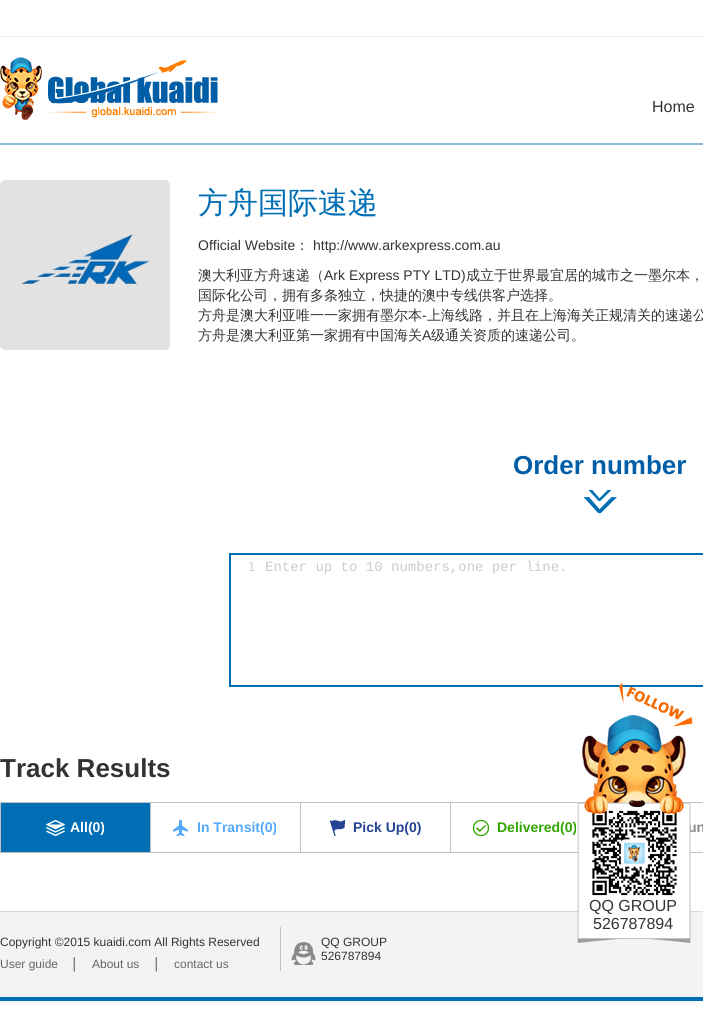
import math
import cairocffi as cairo

surface = cairo.ImageSurface(cairo.FORMAT_RGB24, 703, 1022)
ctx = cairo.Context(surface)
options = cairo.FontOptions()
options.set_hint_metrics(cairo.HINT_METRICS_OFF)
options.set_hint_style(cairo.HINT_STYLE_NONE)
ctx.set_font_options(options)
ctx.set_miter_limit(4)


def rgb(r, g, b):
    ctx.set_source_rgb(r / 255, g / 255, b / 255)


def face(family, size, italic, bold):
    ctx.select_font_face(family, cairo.FONT_SLANT_ITALIC if italic else cairo.FONT_SLANT_NORMAL, cairo.FONT_WEIGHT_BOLD if bold else cairo.FONT_WEIGHT_NORMAL)
    ctx.set_font_size(size)


def label(x, y, s):
    ctx.move_to(x, y)
    ctx.show_text(s)


def rect(x, y, w, h):
    ctx.rectangle(x, y, w, h)
    ctx.fill()


def image(path, x, y, w, h):
    ctx.save()
    ctx.set_source_surface(cairo.ImageSurface.create_from_png(path), x, y)
    ctx.rectangle(x, y, w, h)
    ctx.fill()
    ctx.restore()


rgb(255, 255, 255)
ctx.paint()
rgb(136, 187, 220)
rect(0, 143, 703, 2)
rgb(237, 237, 237)
rect(0, 36, 703, 1)
image('image0.png', 0, 57, 219, 63)
face('Liberation Sans', 16, 0, 0)
rgb(51, 51, 51)
label(652, 112, 'Home')
image('image1.png', 0, 180, 170, 170)
face('WenQuanYi Zen Hei Medium', 30, 0, 0)
rgb(0, 110, 180)
label(198, 213, '方舟国际速递')
face('Liberation Sans', 14, 0, 0)
rgb(51, 51, 51)
label(198, 250, 'Official Website')
face('WenQuanYi Zen Hei Medium', 14, 0, 0)
label(295, 250, '：')
face('Liberation Sans', 14, 0, 0)
label(313, 250, 'http://www.arkexpress.com.au')
face('WenQuanYi Zen Hei Medium', 14, 0, 0)
label(198, 280, '澳大利亚方舟速递（')
face('Liberation Sans', 14, 0, 0)
label(324, 280, 'Ark Express PTY LTD)')
face('WenQuanYi Zen Hei Medium', 14, 0, 0)
label(466, 280, '成立于世界最宜居的城市之一墨尔本，')
label(198, 300, '国际化公司，拥有多条独立，快捷的澳中专线供客户选择。')
label(198, 320, '方舟是澳大利亚唯一一家拥有墨尔本')
face('Liberation Sans', 14, 0, 0)
label(422, 320, '-')
face('WenQuanYi Zen Hei Medium', 14, 0, 0)
label(427, 320, '上海线路，并且在上海海关正规清关的速递公')
label(198, 340, '方舟是澳大利亚第一家拥有中国海关')
face('Liberation Sans', 14, 0, 0)
label(422, 340, 'A')
face('WenQuanYi Zen Hei Medium', 14, 0, 0)
label(431, 340, '级通关资质的速递公司。')
face('Liberation Sans', 26, 0, 1)
rgb(0, 94, 167)
label(513, 474, 'Order number')
image('image2.png', 583, 490, 34, 24)
ctx.rectangle(230, 554, 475, 132)
rgb(0, 110, 180)
ctx.stroke()
face('DejaVu Sans Mono', 12, 0, 0)
rgb(204, 204, 204)
label(248, 571, '1')
face('Liberation Mono', 14, 0, 0)
label(265, 571, 'Enter up to 10 numbers,one per line.')
face('Liberation Sans', 26, 0, 1)
rgb(51, 51, 51)
label(0, 777, 'Track Results')
ctx.rectangle(0.5, 802.5, 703, 50)
rgb(193, 193, 193)
ctx.set_line_width(1)
ctx.stroke()
rgb(0, 110, 180)
rect(1, 803, 149, 49)
rgb(193, 193, 193)
rect(150, 803, 1, 49)
image('image3.png', 46, 820, 19, 16)
face('Liberation Sans', 14, 0, 1)
rgb(255, 255, 255)
label(70, 832, 'All(0)')
rgb(193, 193, 193)
rect(300, 803, 1, 49)
image('image4.png', 173, 820, 15, 16)
rgb(84, 169, 249)
label(197, 832, 'In Transit(0)')
rgb(193, 193, 193)
rect(450, 803, 1, 49)
image('image5.png', 330, 820, 15, 16)
rgb(35, 67, 147)
label(353, 832, 'Pick Up(0)')
image('image6.png', 473, 820, 16, 16)
rgb(50, 165, 0)
label(497, 832, 'Delivered(0)')
rgb(136, 136, 136)
label(688, 832, 'un')
rgb(243, 243, 243)
rect(0, 912, 703, 85)
rgb(216, 216, 216)
rect(0, 911, 703, 1)
image('image7.png', 577, 683, 116, 260)
face('Liberation Sans', 16, 0, 0)
rgb(51, 51, 51)
label(589, 911, 'QQ GROUP')
label(593, 929, '526787894')
rgb(0, 110, 180)
rect(0, 997, 703, 4)
face('Liberation Sans', 12, 0, 0)
rgb(51, 51, 51)
label(0, 946, 'Copyright ©2015 kuaidi.com All Rights Reserved')
rgb(102, 102, 102)
label(0, 968, 'User guide')
rgb(51, 51, 51)
label(71, 968, '│')
rgb(102, 102, 102)
label(92, 968, 'About us')
rgb(51, 51, 51)
label(153, 968, '│')
rgb(102, 102, 102)
label(174, 968, 'contact us')
image('image8.png', 291, 942, 25, 23)
rgb(193, 193, 193)
rect(280, 927, 1, 44)
rgb(51, 51, 51)
label(321, 946, 'QQ GROUP')
label(321, 960, '526787894')
surface.write_to_png('render.png')
